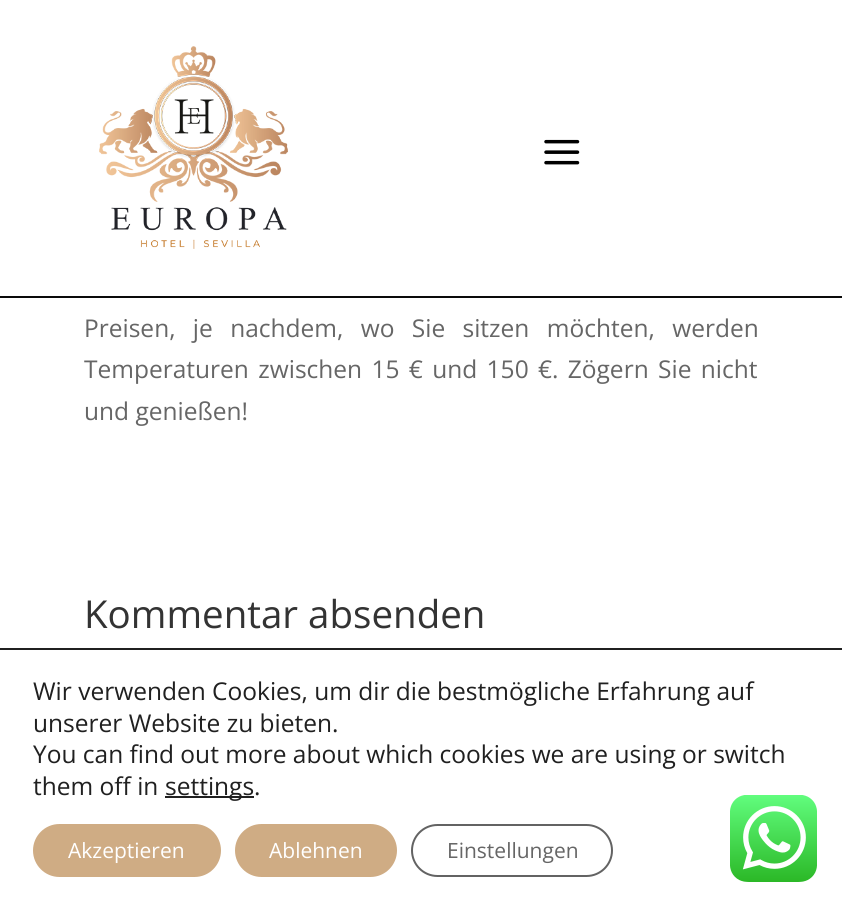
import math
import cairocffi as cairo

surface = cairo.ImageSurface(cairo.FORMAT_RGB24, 842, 907)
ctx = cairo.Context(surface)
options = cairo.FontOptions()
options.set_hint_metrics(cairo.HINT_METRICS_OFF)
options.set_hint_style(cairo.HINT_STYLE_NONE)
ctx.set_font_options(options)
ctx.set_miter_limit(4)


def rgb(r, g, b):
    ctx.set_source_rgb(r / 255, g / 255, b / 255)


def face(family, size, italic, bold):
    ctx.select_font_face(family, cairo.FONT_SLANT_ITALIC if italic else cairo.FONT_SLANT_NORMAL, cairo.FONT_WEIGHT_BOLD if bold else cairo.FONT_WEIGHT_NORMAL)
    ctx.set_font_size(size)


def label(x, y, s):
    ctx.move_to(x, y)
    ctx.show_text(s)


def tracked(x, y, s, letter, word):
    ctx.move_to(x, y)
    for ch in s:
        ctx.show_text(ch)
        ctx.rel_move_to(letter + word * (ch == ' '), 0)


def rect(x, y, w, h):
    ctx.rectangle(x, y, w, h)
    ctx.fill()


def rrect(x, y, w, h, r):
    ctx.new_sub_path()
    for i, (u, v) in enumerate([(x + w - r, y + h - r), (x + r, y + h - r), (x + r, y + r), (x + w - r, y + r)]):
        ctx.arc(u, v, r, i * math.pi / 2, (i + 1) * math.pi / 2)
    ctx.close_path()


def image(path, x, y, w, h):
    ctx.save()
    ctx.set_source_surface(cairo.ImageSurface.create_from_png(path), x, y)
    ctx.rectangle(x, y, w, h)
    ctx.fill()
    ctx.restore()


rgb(255, 255, 255)
ctx.paint()
rgb(10, 10, 10)
rect(0, 296, 842, 2)
image('image0.png', 99, 46, 189, 203)
image('image1.png', 544, 139, 36, 26)
face('Open Sans', 24.5, 0, 0)
rgb(102, 102, 102)
tracked(84, 337, 'Preisen, je nachdem, wo Sie sitzen möchten, werden', 0, 11)
tracked(84, 378, 'Temperaturen zwischen 15 € und 150 €. Zögern Sie nicht', 0, 3)
label(84, 420, 'und genießen!')
face('Open Sans', 38.5, 0, 0)
rgb(51, 51, 51)
label(84, 628, 'Kommentar absenden')
rgb(32, 32, 32)
rect(0, 648, 842, 2)
face('Open Sans', 24.5, 0, 0)
label(33, 700, 'Wir verwenden Cookies, um dir die bestmögliche Erfahrung auf')
label(33, 732, 'unserer Website zu bieten.')
label(33, 763, 'You can find out more about which cookies we are using or switch')
label(33, 795, 'them off in')
rect(165, 796, 89, 2)
label(165, 795, 'settings.')
rgb(207, 172, 132)
rrect(33, 824, 188, 53, 26.5)
ctx.fill()
face('Open Sans', 21, 0, 0)
rgb(255, 255, 255)
label(68, 858, 'Akzeptieren')
rgb(207, 172, 132)
rrect(235, 824, 162, 53, 26.5)
ctx.fill()
rgb(255, 255, 255)
label(269, 858, 'Ablehnen')
rrect(412, 825, 200, 51, 25.5)
rgb(99, 99, 99)
ctx.stroke()
rgb(102, 102, 102)
label(447, 858, 'Einstellungen')
image('image2.png', 730, 795, 87, 87)
surface.write_to_png('render.png')
